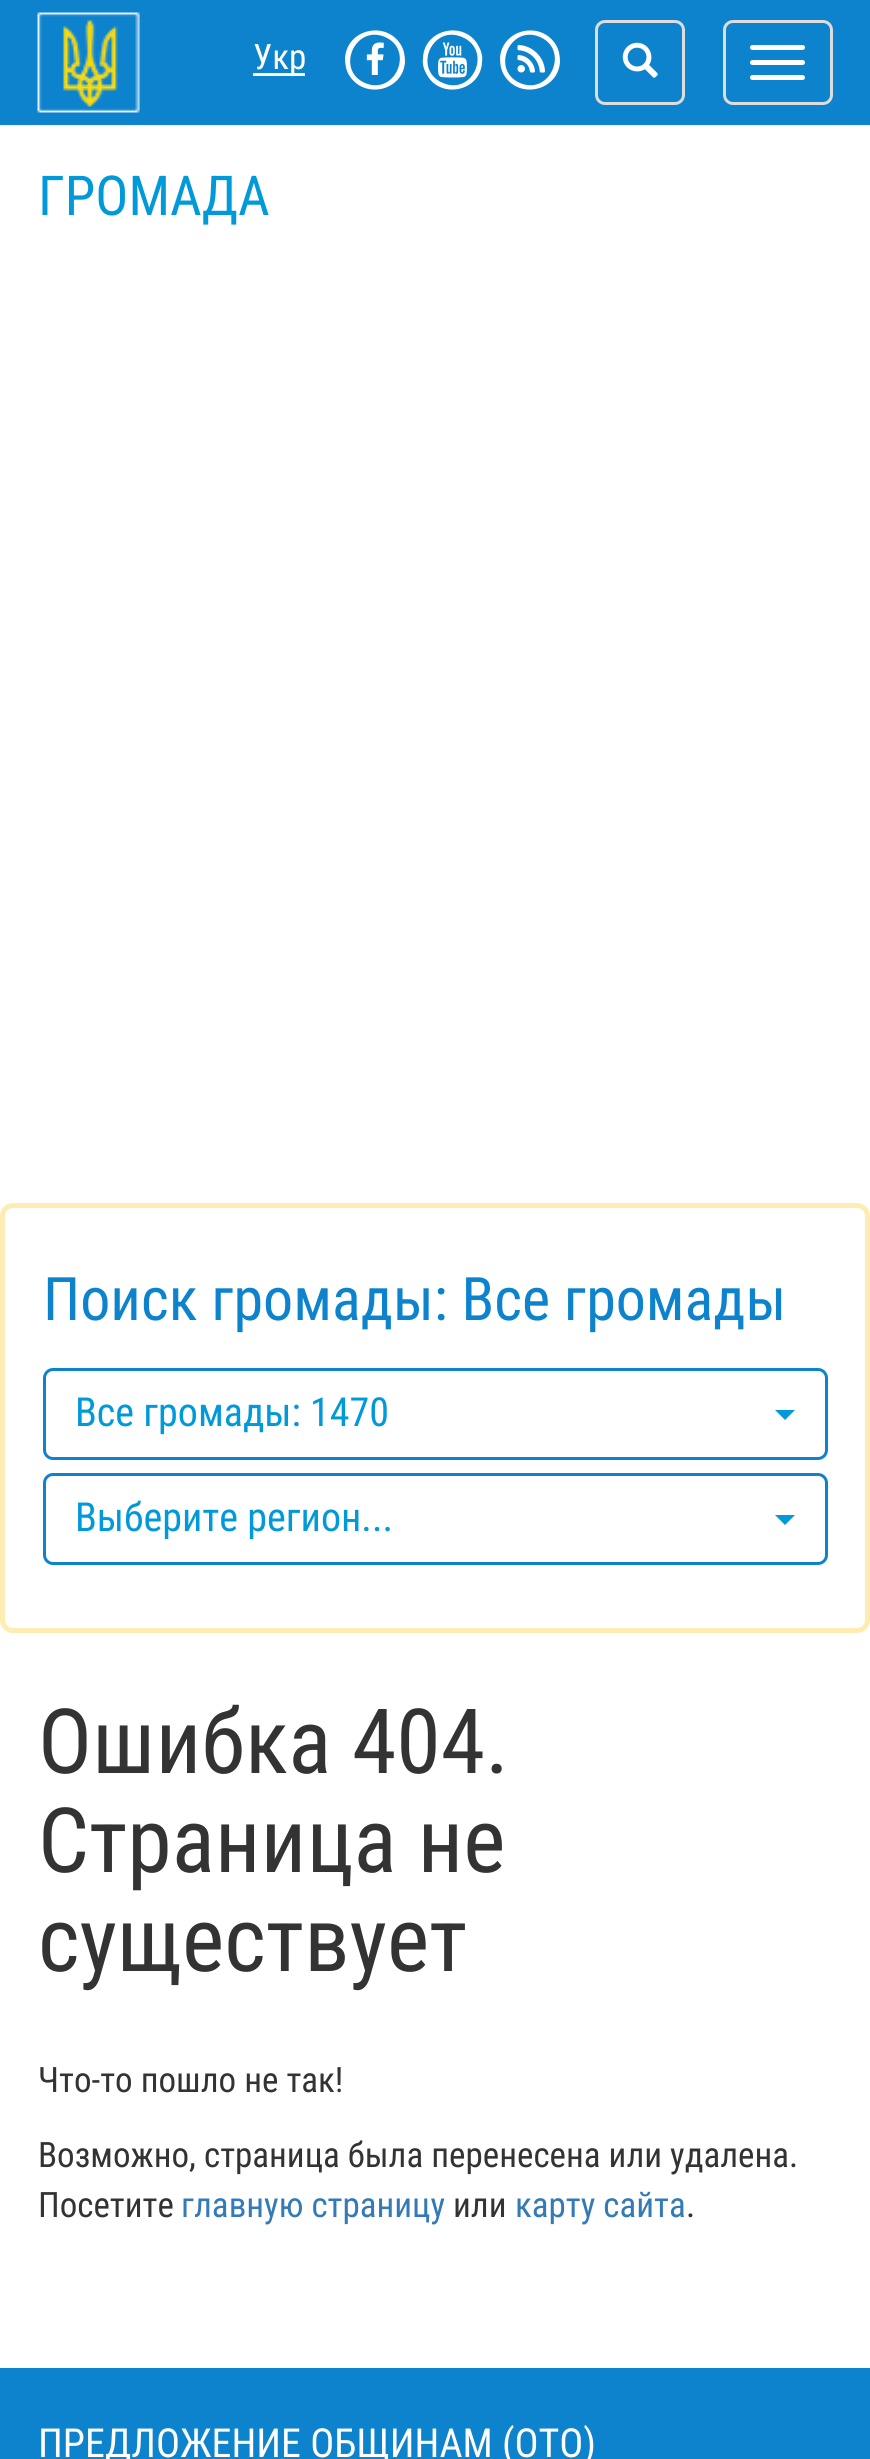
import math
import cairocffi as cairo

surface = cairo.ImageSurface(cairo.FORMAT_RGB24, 870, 2459)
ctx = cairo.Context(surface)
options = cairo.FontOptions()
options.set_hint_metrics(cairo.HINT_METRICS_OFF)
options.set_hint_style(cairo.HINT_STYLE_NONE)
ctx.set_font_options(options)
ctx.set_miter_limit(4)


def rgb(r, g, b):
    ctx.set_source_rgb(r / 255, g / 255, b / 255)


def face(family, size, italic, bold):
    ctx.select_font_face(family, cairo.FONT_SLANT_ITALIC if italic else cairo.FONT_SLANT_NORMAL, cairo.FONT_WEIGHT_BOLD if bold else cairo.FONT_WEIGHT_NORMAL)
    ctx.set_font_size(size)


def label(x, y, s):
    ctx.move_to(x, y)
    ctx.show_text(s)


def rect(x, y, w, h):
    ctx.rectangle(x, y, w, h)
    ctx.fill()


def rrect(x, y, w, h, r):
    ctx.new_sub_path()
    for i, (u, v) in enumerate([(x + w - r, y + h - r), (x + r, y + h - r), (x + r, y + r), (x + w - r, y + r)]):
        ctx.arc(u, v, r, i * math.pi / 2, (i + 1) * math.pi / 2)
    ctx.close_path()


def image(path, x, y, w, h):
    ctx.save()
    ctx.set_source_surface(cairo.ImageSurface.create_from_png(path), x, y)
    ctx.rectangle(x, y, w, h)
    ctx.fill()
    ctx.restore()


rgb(255, 255, 255)
ctx.paint()
rgb(14, 131, 205)
rect(0, 0, 870, 125)
image('image0.png', 37, 12, 103, 101)
rgb(255, 255, 255)
rect(253, 73, 52, 3)
face('Roboto Condensed', 35, 0, 0)
label(253, 69, 'Укр')
ctx.new_path()
ctx.move_to(385, 37)
ctx.curve_to(355, 24, 335, 70, 365, 83)
ctx.curve_to(395, 96, 415, 50, 385, 37)
ctx.close_path()
ctx.move_to(401, 45)
ctx.curve_to(404, 50, 405, 56, 405, 62)
ctx.curve_to(403, 91, 364, 100, 349, 75)
ctx.curve_to(346, 70, 345, 64, 345, 58)
ctx.curve_to(347, 29, 386, 20, 401, 45)
ctx.close_path()
ctx.fill()
image('image1.png', 366, 42, 18, 33)
ctx.new_path()
ctx.move_to(462, 37)
ctx.curve_to(432, 24, 412, 70, 443, 83)
ctx.curve_to(473, 96, 493, 50, 462, 37)
ctx.close_path()
ctx.move_to(478, 45)
ctx.curve_to(481, 50, 483, 56, 482, 62)
ctx.curve_to(481, 91, 441, 100, 427, 75)
ctx.curve_to(424, 70, 422, 64, 423, 58)
ctx.curve_to(424, 29, 464, 20, 478, 45)
ctx.close_path()
ctx.fill()
image('image2.png', 438, 42, 29, 36)
ctx.new_path()
ctx.move_to(540, 37)
ctx.curve_to(510, 24, 490, 70, 520, 83)
ctx.curve_to(550, 96, 570, 50, 540, 37)
ctx.close_path()
ctx.move_to(556, 45)
ctx.curve_to(559, 50, 560, 56, 560, 62)
ctx.curve_to(558, 91, 519, 100, 504, 75)
ctx.curve_to(501, 70, 500, 64, 500, 58)
ctx.curve_to(502, 29, 541, 20, 556, 45)
ctx.close_path()
ctx.fill()
image('image3.png', 517, 45, 28, 28)
rrect(596.5, 21.5, 87, 82, 8.5)
rgb(221, 221, 221)
ctx.set_line_width(3)
ctx.stroke()
image('image4.png', 622, 42, 36, 36)
rrect(724.5, 21.5, 107, 82, 8.5)
ctx.stroke()
rgb(255, 255, 255)
rrect(750, 45, 55, 5, 2.5)
ctx.fill()
rrect(750, 60, 55, 5, 2.5)
ctx.fill()
rrect(750, 75, 55, 5, 2.5)
ctx.fill()
face('Roboto Condensed', 55, 0, 0)
rgb(0, 153, 217)
label(38, 215, 'ГРОМАДА')
rrect(2.5, 1205.5, 865, 425, 10.5)
rgb(255, 236, 178)
ctx.set_line_width(5)
ctx.stroke()
face('Roboto Condensed', 60, 0, 0)
rgb(14, 131, 205)
label(43, 1320, 'Поиск громады: Все громады')
rrect(44.5, 1369.5, 782, 89, 8.5)
ctx.set_line_width(3)
ctx.stroke()
face('Roboto Condensed', 40, 0, 0)
rgb(0, 153, 217)
label(75, 1426, 'Все громады: 1470')
ctx.new_path()
ctx.move_to(775, 1410)
ctx.line_to(795, 1410)
ctx.line_to(785, 1420)
ctx.close_path()
ctx.fill()
rrect(44.5, 1474.5, 782, 89, 8.5)
rgb(14, 131, 205)
ctx.stroke()
rgb(0, 153, 217)
label(75, 1531, 'Выберите регион...')
ctx.new_path()
ctx.move_to(775, 1515)
ctx.line_to(795, 1515)
ctx.line_to(785, 1525)
ctx.close_path()
ctx.fill()
face('Roboto Condensed', 90, 0, 0)
rgb(51, 51, 51)
label(38, 1773, 'Ошибка 404.')
label(38, 1872, 'Страница не')
label(38, 1971, 'существует')
face('Roboto Condensed', 35, 0, 0)
label(38, 2092, 'Что-то пошло не так!')
label(38, 2167, 'Возможно, страница была перенесена или удалена.')
label(38, 2217, 'Посетите')
rgb(51, 122, 183)
label(181, 2217, 'главную страницу')
rgb(51, 51, 51)
label(453, 2217, 'или')
rgb(51, 122, 183)
label(515, 2217, 'карту сайта')
rgb(51, 51, 51)
label(686, 2217, '.')
rgb(14, 131, 205)
rect(0, 2368, 870, 91)
face('Roboto Condensed', 40, 0, 0)
rgb(255, 255, 255)
label(38, 2457, 'ПРЕДЛОЖЕНИЕ ОБЩИНАМ (ОТО)')
surface.write_to_png('render.png')
